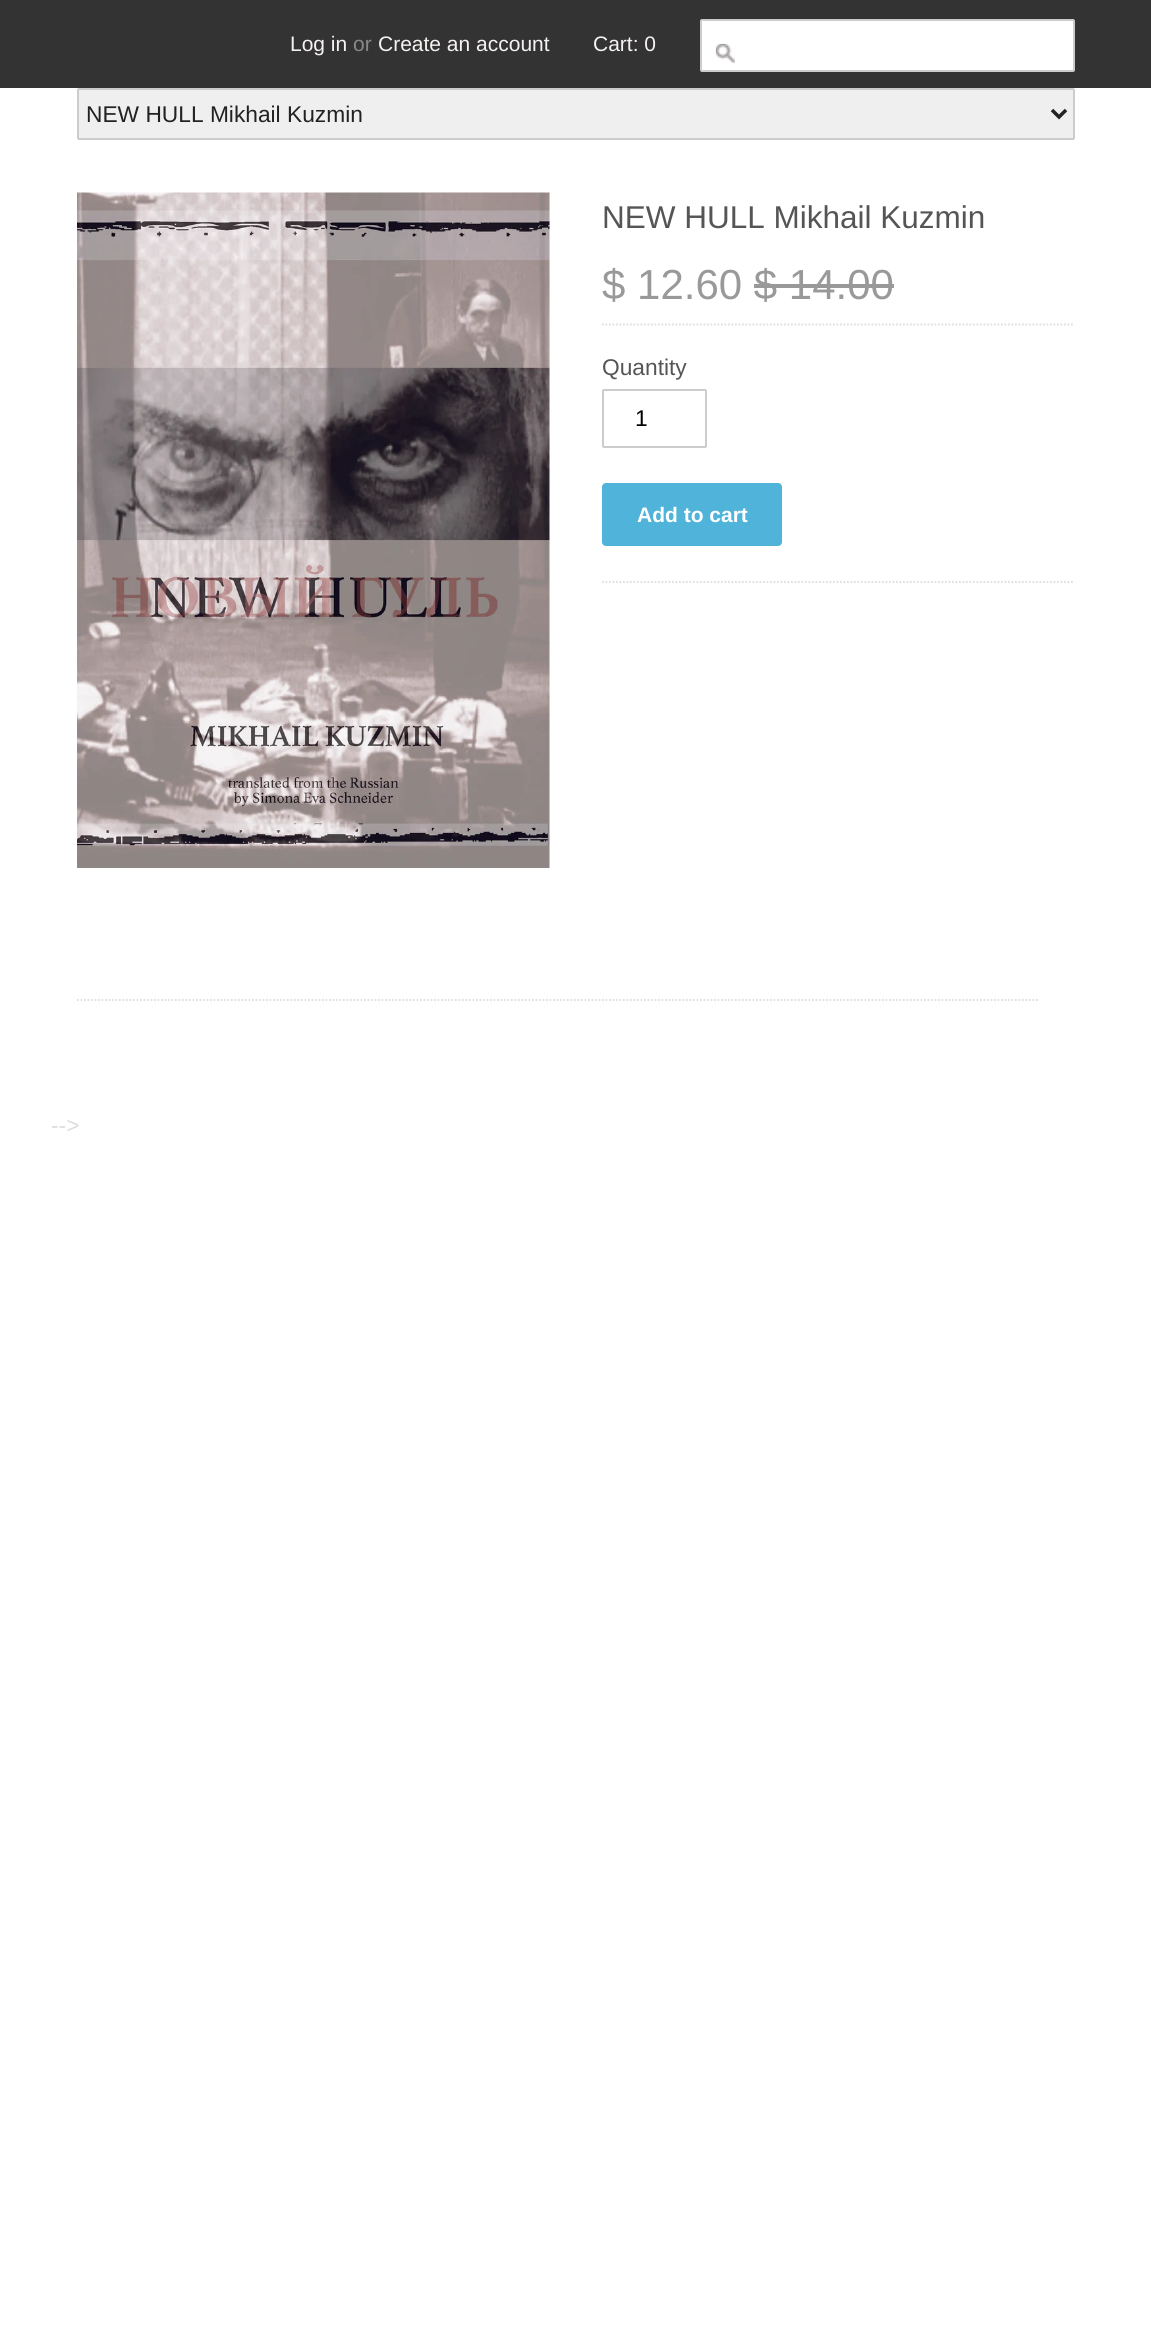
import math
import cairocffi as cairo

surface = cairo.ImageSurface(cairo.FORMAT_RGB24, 1151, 2340)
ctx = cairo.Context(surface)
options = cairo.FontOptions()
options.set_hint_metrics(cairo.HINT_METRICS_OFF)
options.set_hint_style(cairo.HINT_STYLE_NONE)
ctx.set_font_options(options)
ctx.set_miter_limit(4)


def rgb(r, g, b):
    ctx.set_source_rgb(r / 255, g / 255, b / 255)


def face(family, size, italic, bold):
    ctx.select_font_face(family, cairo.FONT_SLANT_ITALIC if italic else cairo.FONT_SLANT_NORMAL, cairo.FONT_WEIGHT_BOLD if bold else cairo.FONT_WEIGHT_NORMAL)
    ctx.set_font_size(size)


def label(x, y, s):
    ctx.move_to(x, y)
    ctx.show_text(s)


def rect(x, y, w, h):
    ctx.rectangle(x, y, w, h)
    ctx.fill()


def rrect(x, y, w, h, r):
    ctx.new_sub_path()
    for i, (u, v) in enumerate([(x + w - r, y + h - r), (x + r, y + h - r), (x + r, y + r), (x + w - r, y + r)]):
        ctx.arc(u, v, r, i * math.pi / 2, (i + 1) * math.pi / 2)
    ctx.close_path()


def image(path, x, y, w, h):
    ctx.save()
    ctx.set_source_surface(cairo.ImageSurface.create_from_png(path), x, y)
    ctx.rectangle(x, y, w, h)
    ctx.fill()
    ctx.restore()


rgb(255, 255, 255)
ctx.paint()
rgb(51, 51, 51)
rect(0, 0, 1151, 88)
face('Liberation Sans', 21, 0, 0)
rgb(247, 242, 242)
label(290, 51, 'Log in')
rgb(136, 136, 136)
label(353, 51, 'or')
rgb(247, 242, 242)
label(378, 51, 'Create an account')
label(593, 51, 'Cart: 0')
rgb(255, 255, 255)
rrect(701, 20, 373, 51, 1)
ctx.fill_preserve()
rgb(204, 204, 204)
ctx.stroke()
image('image0.png', 715, 43, 20, 20)
rgb(239, 239, 239)
rrect(78, 89, 996, 50, 1)
ctx.fill_preserve()
rgb(204, 204, 204)
ctx.stroke()
ctx.new_path()
ctx.move_to(1052, 110)
ctx.line_to(1059, 117)
ctx.line_to(1066, 110)
rgb(34, 34, 34)
ctx.set_line_width(3.5)
ctx.stroke()
face('Liberation Sans', 22.75, 0, 0)
label(86, 122, 'NEW HULL Mikhail Kuzmin')
image('image1.png', 77, 192, 473, 676)
face('Liberation Sans', 31.5, 0, 0)
rgb(85, 85, 85)
label(602, 228, 'NEW HULL Mikhail Kuzmin')
face('Liberation Sans', 42, 0, 0)
rgb(153, 153, 153)
label(602, 299, '$ 12.60 $ 14.00')
rect(754, 284, 140, 4)
ctx.new_path()
ctx.move_to(602, 324.5)
ctx.line_to(1074.5, 324.5)
rgb(221, 221, 221)
ctx.set_line_width(1.8)
ctx.set_dash([1.75, 1.75])
ctx.stroke()
ctx.new_path()
ctx.move_to(602, 582)
ctx.line_to(1074.5, 582)
ctx.stroke()
face('Liberation Sans', 22.75, 0, 0)
rgb(85, 85, 85)
label(602, 375, 'Quantity')
rrect(603, 390, 103, 57, 1)
rgb(204, 204, 204)
ctx.set_line_width(2)
ctx.set_dash([])
ctx.stroke()
rgb(0, 0, 0)
label(635, 426, '1')
rgb(80, 179, 218)
rrect(602, 483, 180, 63, 4)
ctx.fill()
face('Liberation Sans', 21, 0, 1)
rgb(255, 255, 255)
label(637, 522, 'Add to cart')
ctx.new_path()
ctx.move_to(77, 1000)
ctx.line_to(1039.5, 1000)
rgb(221, 221, 221)
ctx.set_line_width(1.8)
ctx.set_dash([1.75, 1.75])
ctx.stroke()
face('Liberation Sans', 22.75, 0, 0)
label(51, 1133, '-->')
surface.write_to_png('render.png')
